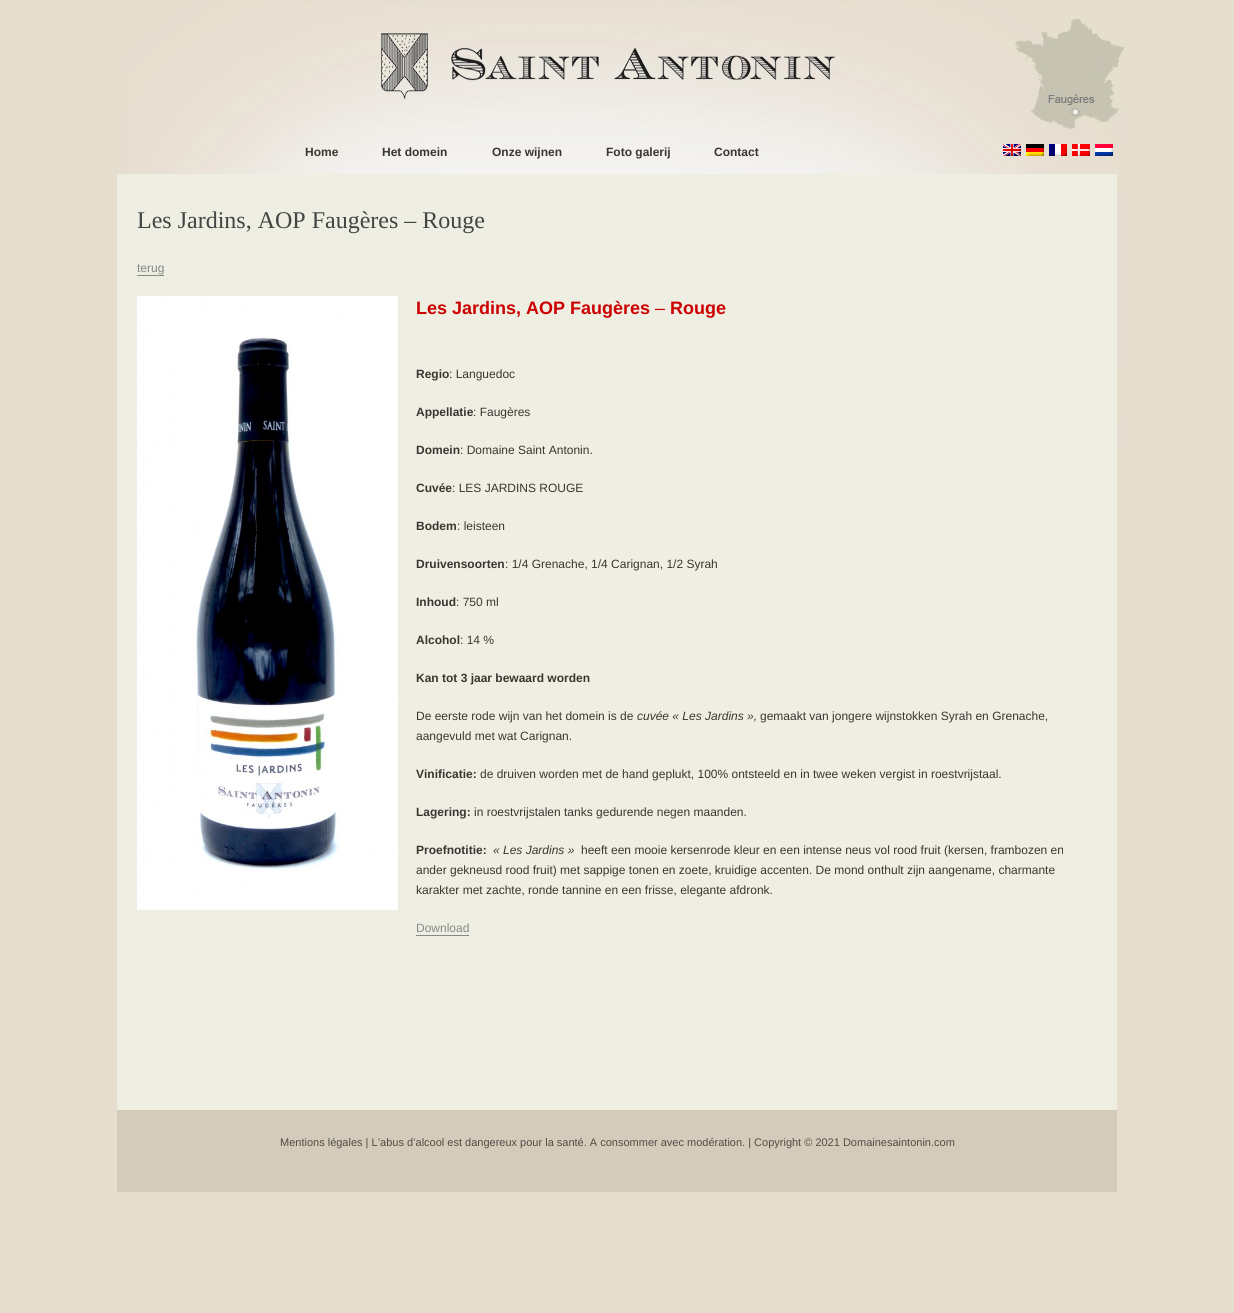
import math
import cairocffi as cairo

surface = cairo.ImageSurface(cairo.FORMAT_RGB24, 1234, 1313)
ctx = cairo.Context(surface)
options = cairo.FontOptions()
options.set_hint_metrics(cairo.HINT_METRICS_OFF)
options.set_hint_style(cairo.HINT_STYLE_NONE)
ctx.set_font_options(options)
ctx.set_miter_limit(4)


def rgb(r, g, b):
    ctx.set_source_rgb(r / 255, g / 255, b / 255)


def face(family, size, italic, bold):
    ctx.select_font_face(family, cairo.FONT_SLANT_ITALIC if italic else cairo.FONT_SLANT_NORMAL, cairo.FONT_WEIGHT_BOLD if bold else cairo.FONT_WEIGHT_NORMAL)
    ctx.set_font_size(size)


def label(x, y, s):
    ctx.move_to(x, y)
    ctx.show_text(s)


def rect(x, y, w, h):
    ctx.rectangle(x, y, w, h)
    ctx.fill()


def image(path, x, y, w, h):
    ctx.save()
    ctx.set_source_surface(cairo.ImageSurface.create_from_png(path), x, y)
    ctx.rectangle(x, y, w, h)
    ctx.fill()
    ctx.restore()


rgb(229, 221, 206)
ctx.paint()
image('image0.png', 127, 1, 998, 536)
image('image1.png', 381, 33, 454, 66)
image('image2.png', 1003, 144, 18, 12)
image('image3.png', 1026, 144, 18, 12)
image('image4.png', 1049, 144, 18, 12)
image('image5.png', 1072, 144, 18, 12)
image('image6.png', 1095, 144, 18, 12)
face('Liberation Sans', 12, 0, 1)
rgb(57, 54, 49)
label(305, 156, 'Home')
label(382, 156, 'Het domein')
label(492, 156, 'Onze wijnen')
label(606, 156, 'Foto galerij')
label(714, 156, 'Contact')
rgb(239, 238, 226)
rect(117, 174, 1000, 936)
face('Liberation Serif', 24, 0, 0)
rgb(68, 68, 68)
label(137, 228, 'Les Jardins, AOP Faugères – Rouge')
face('Liberation Sans', 12, 0, 0)
rgb(136, 136, 136)
label(137, 272, 'terug')
rect(137, 275, 27, 1)
image('image7.png', 137, 296, 261, 614)
face('Liberation Sans', 18, 0, 1)
rgb(204, 0, 0)
label(416, 314, 'Les Jardins, AOP Faugères')
face('Liberation Sans', 18, 0, 0)
label(655, 314, '–')
face('Liberation Sans', 18, 0, 1)
label(670, 314, 'Rouge')
face('Liberation Sans', 12, 0, 1)
rgb(57, 54, 49)
label(416, 378, 'Regio')
face('Liberation Sans', 12, 0, 0)
label(449, 378, ': Languedoc')
face('Liberation Sans', 12, 0, 1)
label(416, 416, 'Appellatie')
face('Liberation Sans', 12, 0, 0)
label(473, 416, ': Faugères')
face('Liberation Sans', 12, 0, 1)
label(416, 454, 'Domein')
face('Liberation Sans', 12, 0, 0)
label(460, 454, ': Domaine Saint Antonin.')
face('Liberation Sans', 12, 0, 1)
label(416, 492, 'Cuvée')
face('Liberation Sans', 12, 0, 0)
label(452, 492, ': LES JARDINS ROUGE')
face('Liberation Sans', 12, 0, 1)
label(416, 530, 'Bodem')
face('Liberation Sans', 12, 0, 0)
label(457, 530, ': leisteen')
face('Liberation Sans', 12, 0, 1)
label(416, 568, 'Druivensoorten')
face('Liberation Sans', 12, 0, 0)
label(505, 568, ': 1/4 Grenache, 1/4 Carignan, 1/2 Syrah')
face('Liberation Sans', 12, 0, 1)
label(416, 606, 'Inhoud')
face('Liberation Sans', 12, 0, 0)
label(456, 606, ': 750 ml')
face('Liberation Sans', 12, 0, 1)
label(416, 644, 'Alcohol')
face('Liberation Sans', 12, 0, 0)
label(460, 644, ': 14 %')
face('Liberation Sans', 12, 0, 1)
label(416, 682, 'Kan tot 3 jaar bewaard worden')
face('Liberation Sans', 12, 0, 0)
label(416, 720, 'De eerste rode wijn van het domein is de')
face('Liberation Sans', 12, 1, 0)
label(637, 720, 'cuvée « Les Jardins »,')
face('Liberation Sans', 12, 0, 0)
label(760, 720, 'gemaakt van jongere wijnstokken Syrah en Grenache,')
label(416, 740, 'aangevuld met wat Carignan.')
face('Liberation Sans', 12, 0, 1)
label(416, 778, 'Vinificatie:')
face('Liberation Sans', 12, 0, 0)
label(480, 778, 'de druiven worden met de hand geplukt, 100% ontsteeld en in twee weken vergist in roestvrijstaal.')
face('Liberation Sans', 12, 0, 1)
label(416, 816, 'Lagering:')
face('Liberation Sans', 12, 0, 0)
label(474, 816, 'in roestvrijstalen tanks gedurende negen maanden.')
face('Liberation Sans', 12, 0, 1)
label(416, 854, 'Proefnotitie:')
face('Liberation Sans', 12, 1, 0)
label(493, 854, '« Les Jardins »')
face('Liberation Sans', 12, 0, 0)
label(581, 854, 'heeft een mooie kersenrode kleur en een intense neus vol rood fruit (kersen, frambozen en')
label(416, 874, 'ander gekneusd rood fruit) met sappige tonen en zoete, kruidige accenten. De mond onthult zijn aangename, charmante')
label(416, 894, 'karakter met zachte, ronde tannine en een frisse, elegante afdronk.')
rgb(136, 136, 136)
label(416, 932, 'Download')
rect(416, 935, 53, 1)
rgb(212, 203, 187)
rect(117, 1110, 1000, 82)
face('Liberation Sans', 11, 0, 0)
rgb(80, 76, 68)
label(280, 1146, 'Mentions légales | L’abus d’alcool est dangereux pour la santé. A consommer avec modération. | Copyright © 2021 Domainesaintonin.com')
surface.write_to_png('render.png')
